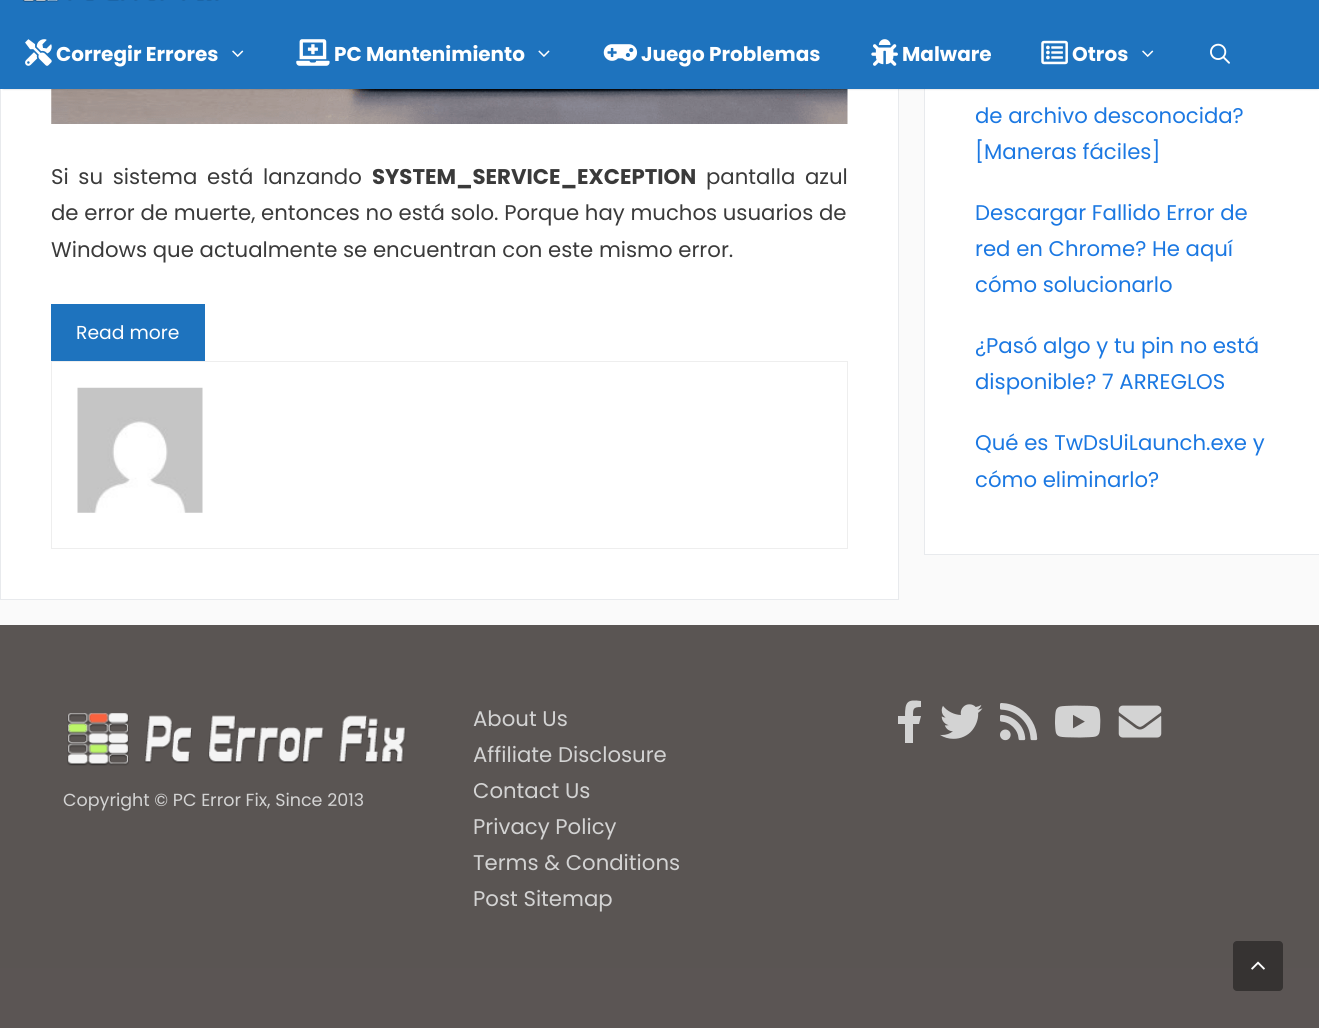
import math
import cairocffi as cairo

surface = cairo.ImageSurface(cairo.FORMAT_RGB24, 1319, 1028)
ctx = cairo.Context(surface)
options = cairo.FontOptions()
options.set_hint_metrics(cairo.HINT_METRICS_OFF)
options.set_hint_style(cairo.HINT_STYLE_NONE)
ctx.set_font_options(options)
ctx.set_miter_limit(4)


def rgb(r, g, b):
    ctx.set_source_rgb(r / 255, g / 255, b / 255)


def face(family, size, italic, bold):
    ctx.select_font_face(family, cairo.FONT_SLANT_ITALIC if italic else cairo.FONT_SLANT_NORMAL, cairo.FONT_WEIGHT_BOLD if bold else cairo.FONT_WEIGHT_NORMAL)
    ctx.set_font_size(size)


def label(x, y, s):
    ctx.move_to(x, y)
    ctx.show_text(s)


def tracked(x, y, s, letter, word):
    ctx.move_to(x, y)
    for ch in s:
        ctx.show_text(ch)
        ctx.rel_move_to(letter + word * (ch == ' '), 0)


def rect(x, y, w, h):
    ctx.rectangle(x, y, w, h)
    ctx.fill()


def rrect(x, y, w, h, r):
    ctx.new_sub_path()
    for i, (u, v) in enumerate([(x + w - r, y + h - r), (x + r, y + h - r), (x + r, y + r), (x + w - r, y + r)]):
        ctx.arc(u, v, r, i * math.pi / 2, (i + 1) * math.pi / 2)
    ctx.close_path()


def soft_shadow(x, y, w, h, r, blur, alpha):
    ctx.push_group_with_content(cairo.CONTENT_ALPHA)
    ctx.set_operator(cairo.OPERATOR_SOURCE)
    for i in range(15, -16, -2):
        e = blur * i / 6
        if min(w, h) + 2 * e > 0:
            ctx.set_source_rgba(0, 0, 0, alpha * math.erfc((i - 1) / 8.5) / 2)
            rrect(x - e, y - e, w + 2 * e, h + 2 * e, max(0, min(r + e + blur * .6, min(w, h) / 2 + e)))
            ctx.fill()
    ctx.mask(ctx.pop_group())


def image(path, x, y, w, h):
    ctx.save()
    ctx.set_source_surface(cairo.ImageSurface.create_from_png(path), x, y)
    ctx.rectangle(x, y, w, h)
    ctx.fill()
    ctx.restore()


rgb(250, 250, 250)
ctx.paint()
rgb(255, 255, 255)
rect(1, 89, 897, 510)
ctx.rectangle(0.5, -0.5, 898, 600)
rgb(232, 234, 237)
ctx.set_line_width(1)
ctx.stroke()
image('image9.png', 51, 89, 797, 35)
rgb(255, 255, 255)
rect(925, 89, 394, 465)
ctx.rectangle(924.5, -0.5, 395, 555)
rgb(232, 234, 237)
ctx.stroke()
rgb(0, 0, 0)
soft_shadow(3, -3, 1315, 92, 0, 1, 0.2)
rgb(30, 115, 190)
rect(0, 0, 1319, 89)
image('image0.png', 22, 0, 197, 2)
image('image1.png', 25, 39, 27, 27)
face('Poppins', 20, 0, 1)
rgb(255, 255, 255)
label(56, 61, 'Corregir Errores')
image('image2.png', 232, 50, 12, 7)
image('image3.png', 296, 39, 34, 27)
label(334, 61, 'PC Mantenimiento')
image('image4.png', 538, 50, 12, 7)
image('image5.png', 603, 44, 35, 17)
label(641, 61, 'Juego Problemas')
image('image6.png', 871, 39, 27, 27)
label(902, 61, 'Malware')
image('image7.png', 1041, 40, 27, 25)
label(1072, 61, 'Otros')
image('image2.png', 1142, 50, 12, 7)
image('image8.png', 1210, 43, 20, 21)
face('Poppins', 21.25, 0, 0)
rgb(58, 58, 58)
tracked(51, 184, 'Si su sistema está lanzando', 0, 4)
face('Poppins', 21.25, 0, 1)
label(372, 184, 'SYSTEM_SERVICE_EXCEPTION')
face('Poppins', 21.25, 0, 0)
tracked(706, 184, 'pantalla azul', 0, 4)
label(51, 220, 'de error de muerte, entonces no está solo. Porque hay muchos usuarios de')
label(51, 257, 'Windows que actualmente se encuentran con este mismo error.')
rgb(30, 115, 190)
rect(51, 304, 154, 57)
face('Poppins', 18.75, 0, 0)
rgb(255, 255, 255)
label(76, 339, 'Read more')
ctx.rectangle(51.5, 361.5, 796, 187)
rgb(238, 238, 238)
ctx.stroke()
image('image10.png', 77, 387, 126, 126)
face('Poppins', 21.25, 0, 0)
rgb(27, 120, 226)
label(975, 123, 'de archivo desconocida?')
label(975, 159, '[Maneras fáciles]')
label(975, 220, 'Descargar Fallido Error de')
label(975, 256, 'red en Chrome? He aquí')
label(975, 292, 'cómo solucionarlo')
label(975, 353, '¿Pasó algo y tu pin no está')
label(975, 389, 'disponible? 7 ARREGLOS')
label(975, 450, 'Qué es TwDsUiLaunch.exe y')
label(975, 487, 'cómo eliminarlo?')
rgb(90, 85, 83)
rect(0, 625, 1319, 343)
image('image11.png', 67, 713, 339, 53)
face('Poppins', 17.5, 0, 0)
rgb(211, 211, 211)
label(63, 806, 'Copyright © PC Error Fix, Since 2013')
face('Poppins', 21.25, 0, 0)
label(473, 726, 'About Us')
label(473, 762, 'Affiliate Disclosure')
label(473, 798, 'Contact Us')
label(473, 834, 'Privacy Policy')
label(473, 870, 'Terms & Conditions')
label(473, 906, 'Post Sitemap')
ctx.new_path()
ctx.move_to(919, 724)
ctx.line_to(913, 724)
ctx.line_to(913, 743)
ctx.line_to(905, 743)
ctx.line_to(905, 724)
ctx.line_to(898, 724)
ctx.line_to(898, 716)
ctx.line_to(905, 716)
ctx.curve_to(905, 702, 907, 699, 921, 701)
ctx.line_to(921, 707)
ctx.curve_to(913, 707, 913, 709, 913, 716)
ctx.line_to(921, 716)
ctx.close_path()
ctx.fill()
image('image12.png', 940, 704, 43, 35)
image('image13.png', 1000, 703, 38, 38)
image('image14.png', 1055, 705, 46, 33)
image('image15.png', 1118, 705, 44, 33)
rgb(91, 85, 84)
rect(0, 968, 1319, 60)
rgb(54, 51, 50)
rrect(1233, 941, 50, 50, 4)
ctx.fill()
image('image16.png', 1251, 961, 14, 9)
surface.write_to_png('render.png')
